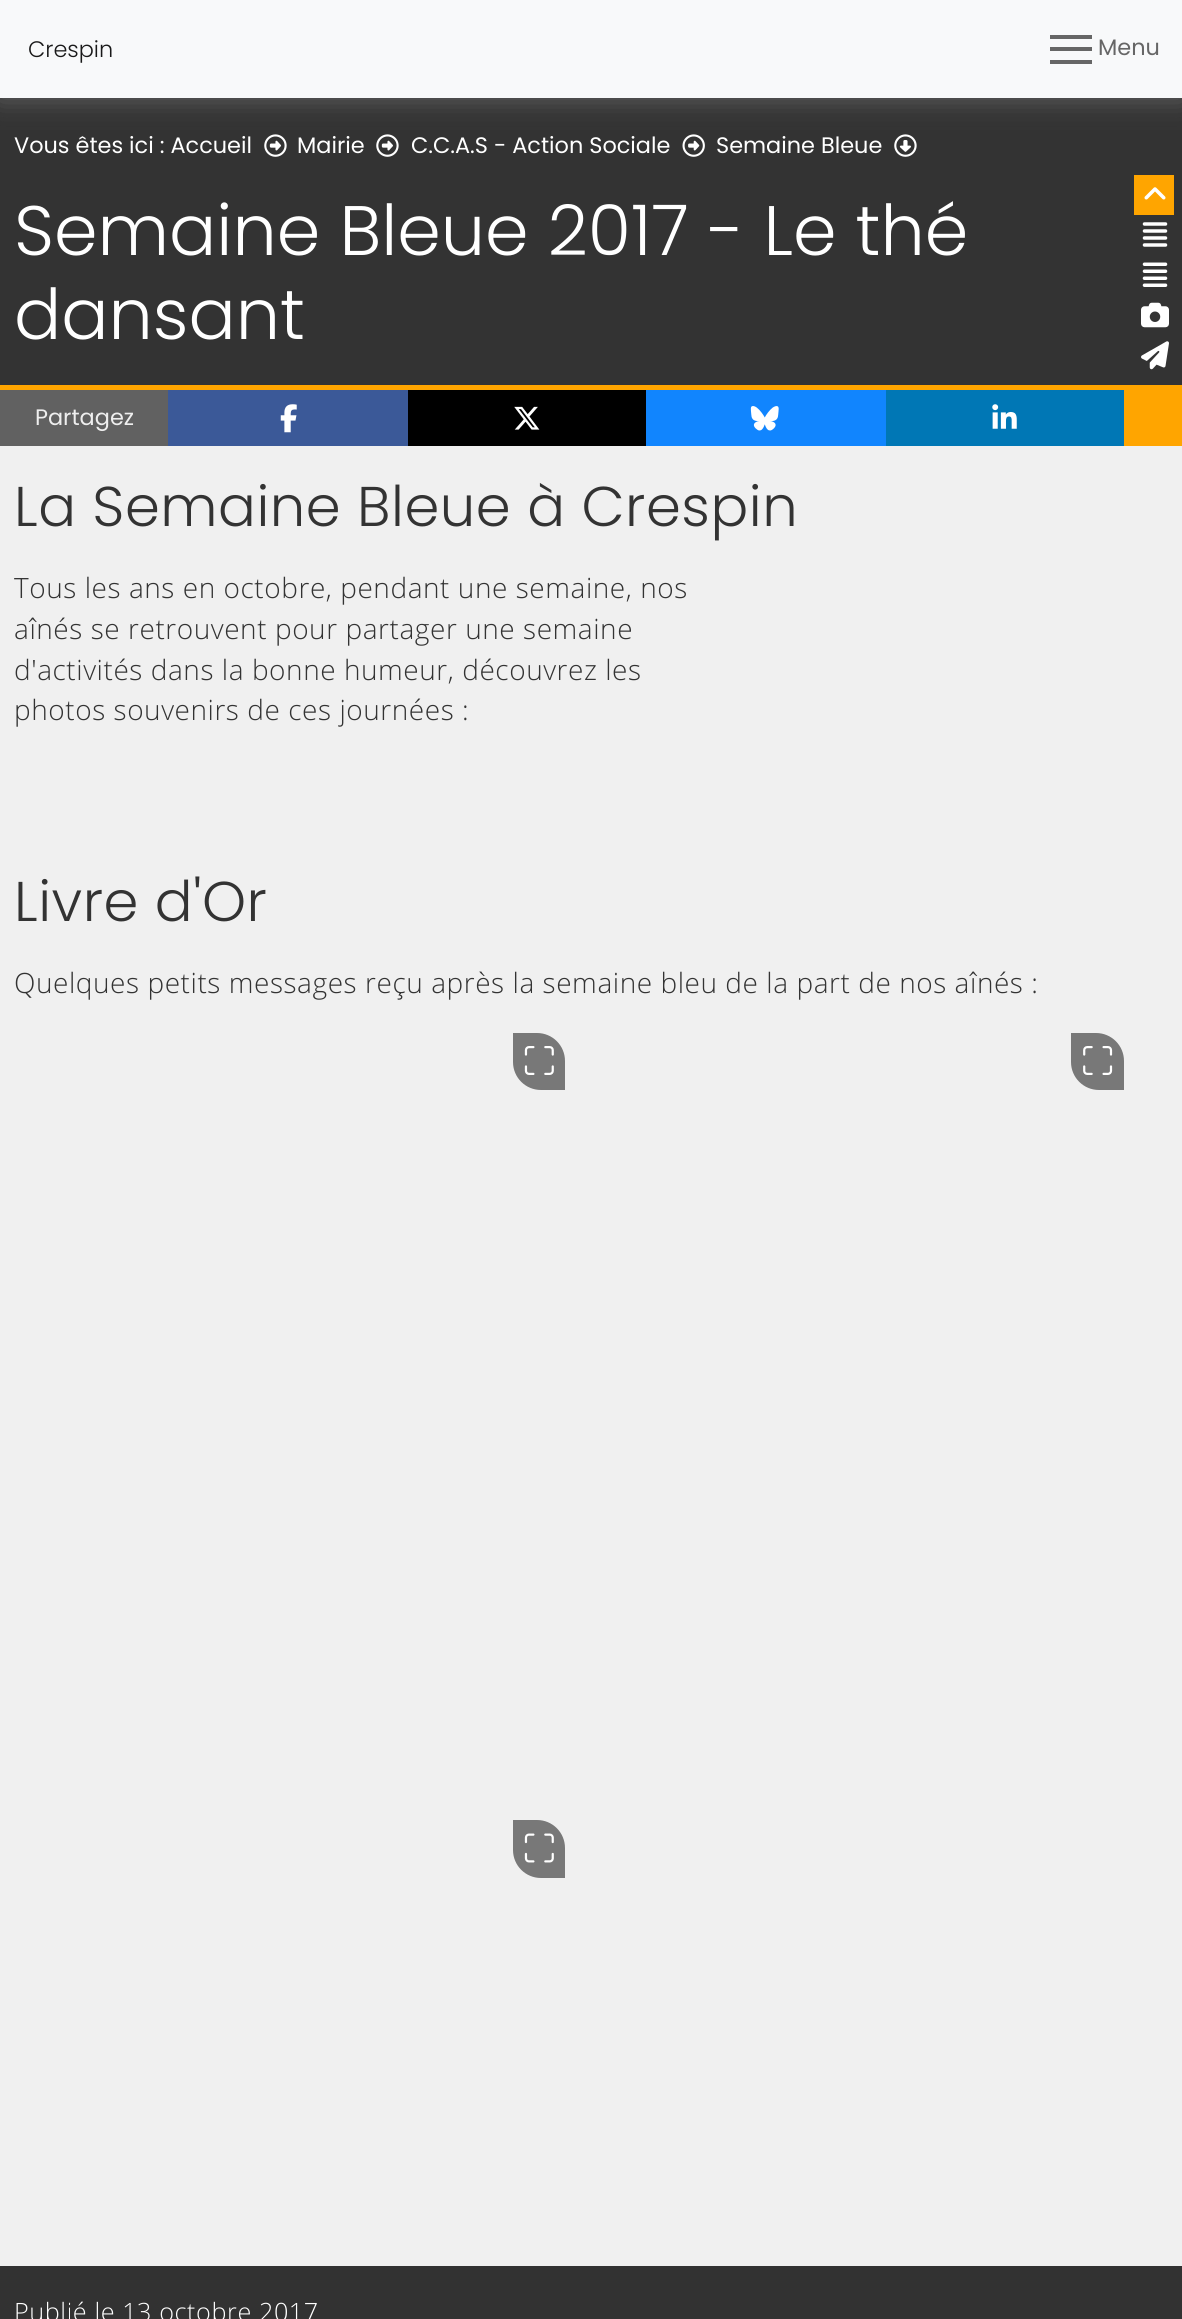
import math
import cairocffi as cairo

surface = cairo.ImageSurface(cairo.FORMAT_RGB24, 1182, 2319)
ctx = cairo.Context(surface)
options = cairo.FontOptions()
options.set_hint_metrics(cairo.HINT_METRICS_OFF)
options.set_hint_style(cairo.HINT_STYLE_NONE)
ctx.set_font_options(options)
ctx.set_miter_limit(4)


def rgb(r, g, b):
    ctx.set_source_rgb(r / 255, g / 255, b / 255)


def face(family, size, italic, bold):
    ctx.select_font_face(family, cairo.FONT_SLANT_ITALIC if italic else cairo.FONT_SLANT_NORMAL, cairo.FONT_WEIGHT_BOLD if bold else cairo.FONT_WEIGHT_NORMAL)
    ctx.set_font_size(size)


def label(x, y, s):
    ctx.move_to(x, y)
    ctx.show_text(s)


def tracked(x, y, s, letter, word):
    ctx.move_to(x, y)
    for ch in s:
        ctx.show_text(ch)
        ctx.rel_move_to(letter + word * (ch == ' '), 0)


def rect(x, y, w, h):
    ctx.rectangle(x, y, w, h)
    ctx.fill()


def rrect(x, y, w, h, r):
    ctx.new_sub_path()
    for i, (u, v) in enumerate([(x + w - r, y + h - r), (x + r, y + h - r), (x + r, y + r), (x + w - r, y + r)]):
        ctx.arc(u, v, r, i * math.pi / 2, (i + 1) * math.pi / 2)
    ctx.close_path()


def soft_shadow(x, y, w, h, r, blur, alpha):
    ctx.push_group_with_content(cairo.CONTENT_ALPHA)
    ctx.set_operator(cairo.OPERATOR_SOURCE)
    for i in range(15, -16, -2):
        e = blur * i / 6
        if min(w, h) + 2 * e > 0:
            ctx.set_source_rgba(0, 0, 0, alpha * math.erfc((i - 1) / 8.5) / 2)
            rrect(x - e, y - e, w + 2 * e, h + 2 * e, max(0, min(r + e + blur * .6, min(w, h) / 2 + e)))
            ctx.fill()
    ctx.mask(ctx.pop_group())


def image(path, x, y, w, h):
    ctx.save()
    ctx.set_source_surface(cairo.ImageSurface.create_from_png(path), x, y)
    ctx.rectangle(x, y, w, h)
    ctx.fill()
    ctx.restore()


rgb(240, 240, 240)
ctx.paint()
rgb(51, 51, 51)
rect(0, 98, 1182, 287)
image('image0.png', 264, 134, 23, 23)
image('image0.png', 376, 134, 23, 23)
image('image1.png', 682, 134, 23, 23)
image('image2.png', 894, 134, 23, 23)
rgb(102, 102, 102)
soft_shadow(0, 0, 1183, 98, 0, 13, 1)
rgb(248, 249, 250)
rect(0, 0, 1182, 98)
face('Poppins Light', 22.4, 0, 0)
rgb(25, 25, 25)
label(28, 57, 'Crespin')
rgb(102, 102, 102)
rect(1050, 35, 42, 4)
rect(1050, 47, 42, 4)
rect(1050, 60, 42, 4)
face('Poppins', 22.4, 0, 0)
label(1098, 55, 'Menu')
rgb(255, 255, 255)
label(14, 153, 'Vous êtes ici : Accueil')
label(297, 153, 'Mairie')
label(411, 153, 'C.C.A.S - Action Sociale')
label(716, 153, 'Semaine Bleue')
face('Poppins Light', 70, 0, 0)
label(14, 255, 'Semaine Bleue 2017 - Le thé')
label(14, 339, 'dansant')
rgb(255, 165, 0)
rect(0, 385, 1124, 5)
rect(1124, 385, 58, 61)
rgb(97, 97, 97)
rect(0, 390, 168, 56)
face('Poppins', 22.4, 0, 0)
rgb(238, 238, 238)
label(35, 425, 'Partagez')
rgb(59, 89, 152)
rect(168, 390, 240, 56)
image('image3.png', 280, 404, 17, 29)
rgb(0, 0, 0)
rect(408, 390, 238, 56)
image('image4.png', 514, 406, 26, 24)
rgb(17, 133, 254)
rect(646, 390, 240, 56)
image('image5.png', 750, 406, 29, 25)
rgb(0, 119, 181)
rect(886, 390, 238, 56)
image('image6.png', 992, 404, 25, 25)
rgb(255, 165, 0)
rect(1134, 175, 40, 40)
image('image7.png', 1144, 187, 22, 13)
image('image8.png', 1142, 222, 26, 25)
image('image9.png', 1142, 262, 26, 25)
image('image10.png', 1141, 302, 28, 26)
image('image11.png', 1141, 341, 28, 29)
face('Poppins Light', 56, 0, 0)
rgb(51, 51, 51)
tracked(14, 526, 'La Semaine Bleue à Crespin', 0.55, 0)
face('Open Sans Light', 28, 0, 0)
tracked(14, 598, 'Tous les ans en octobre, pendant une semaine, nos', 0.55, 0)
tracked(14, 639, 'aînés se retrouvent pour partager une semaine', 0.55, 0)
tracked(14, 680, 'd\'activités dans la bonne humeur, découvrez les', 0.55, 0)
tracked(14, 720, 'photos souvenirs de ces journées :', 0.55, 0)
face('Poppins Light', 56, 0, 0)
tracked(14, 921, 'Livre d\'Or', 0.55, 0)
face('Open Sans Light', 28, 0, 0)
tracked(14, 993, 'Quelques petits messages reçu après la semaine bleu de la part de nos aînés :', 0.55, 0)
rgb(120, 120, 120)
ctx.new_path()
ctx.move_to(513, 1033)
ctx.line_to(537, 1033)
ctx.curve_to(552.5, 1033, 565, 1045.5, 565, 1061)
ctx.line_to(565, 1090)
ctx.line_to(541, 1090)
ctx.curve_to(525.5, 1090, 513, 1077.5, 513, 1062)
ctx.close_path()
ctx.fill()
image('image12.png', 524, 1046, 30, 29)
ctx.new_path()
ctx.move_to(1071, 1033)
ctx.line_to(1096, 1033)
ctx.curve_to(1111.5, 1033, 1124, 1045.5, 1124, 1061)
ctx.line_to(1124, 1090)
ctx.line_to(1099, 1090)
ctx.curve_to(1083.5, 1090, 1071, 1077.5, 1071, 1062)
ctx.close_path()
ctx.fill()
image('image13.png', 1083, 1046, 30, 29)
ctx.new_path()
ctx.move_to(513, 1820)
ctx.line_to(537, 1820)
ctx.curve_to(552.5, 1820, 565, 1832.5, 565, 1848)
ctx.line_to(565, 1878)
ctx.line_to(541, 1878)
ctx.curve_to(525.5, 1878, 513, 1865.5, 513, 1850)
ctx.close_path()
ctx.fill()
image('image14.png', 524, 1833, 30, 30)
rgb(50, 50, 50)
rect(0, 2266, 1182, 53)
face('Open Sans Light', 25.25, 0, 0)
rgb(255, 255, 255)
tracked(14, 2321, 'Publié le 13 octobre 2017', 0.55, 0)
surface.write_to_png('render.png')
